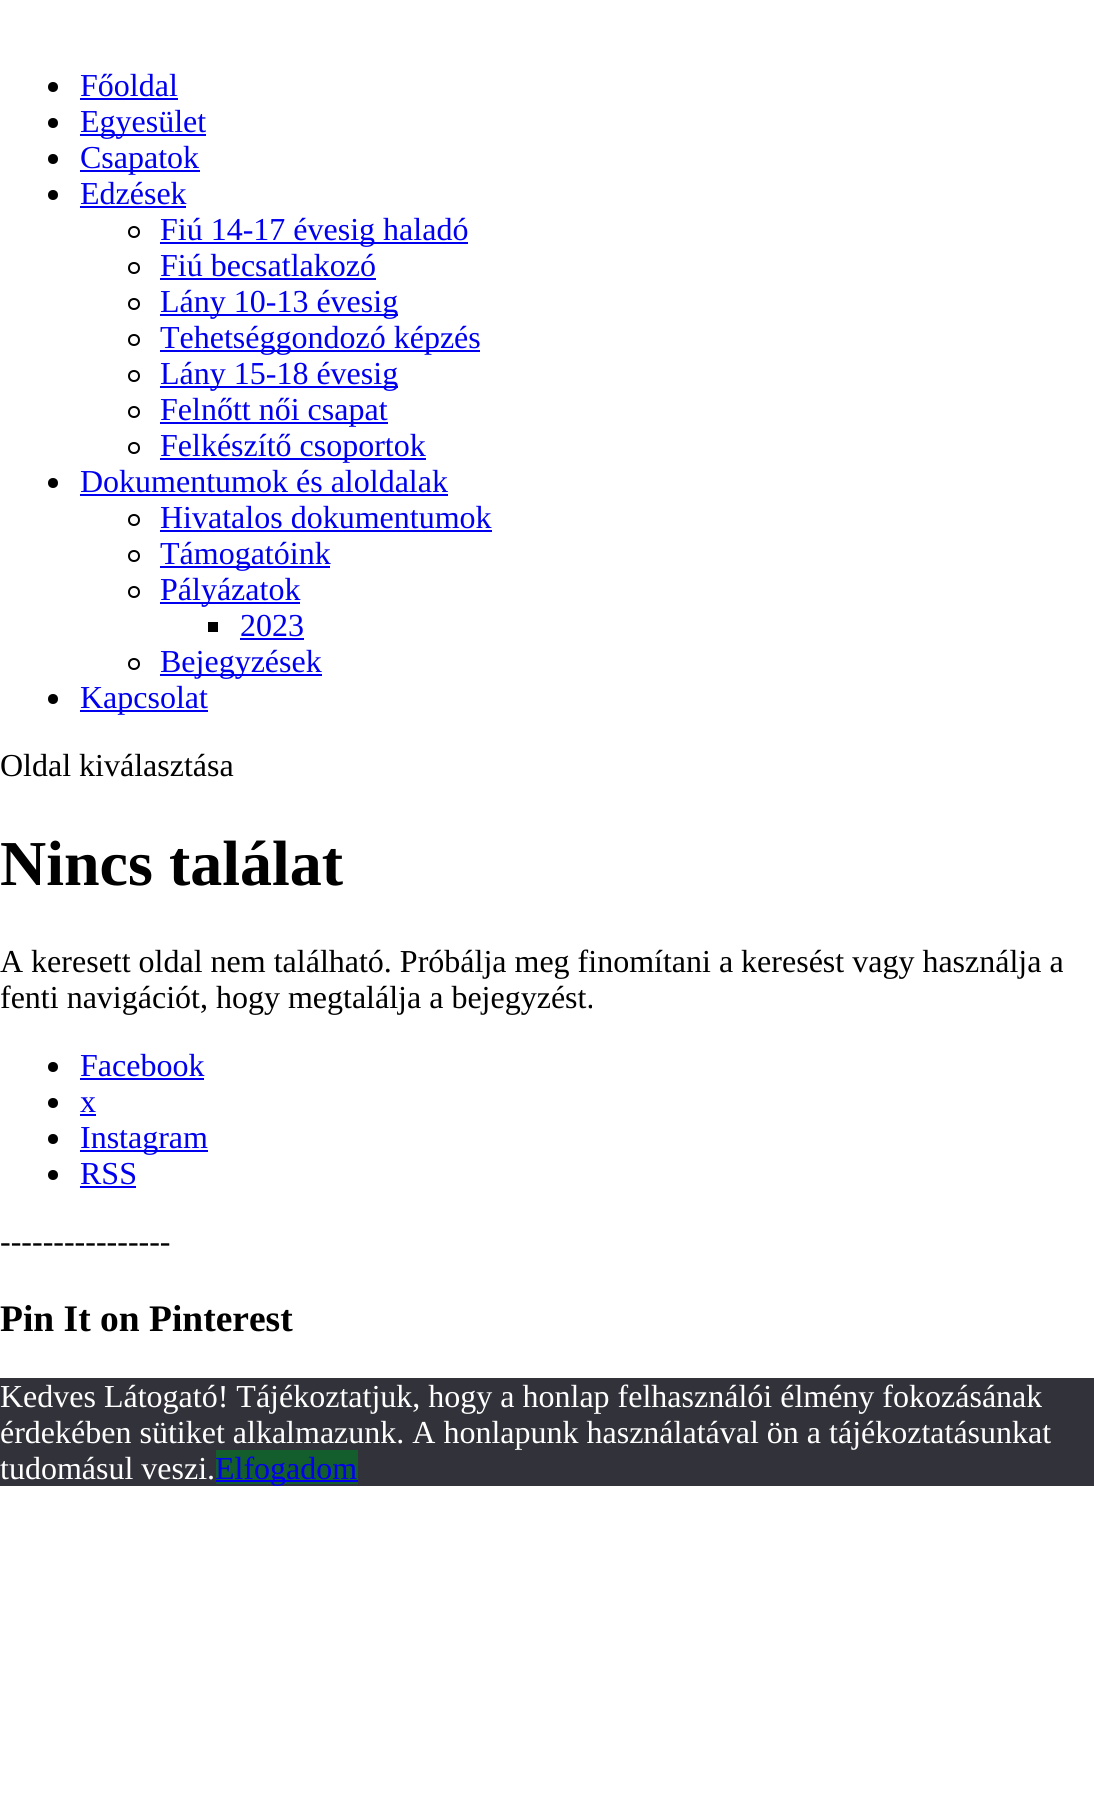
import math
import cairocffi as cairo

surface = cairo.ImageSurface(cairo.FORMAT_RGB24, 1094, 1794)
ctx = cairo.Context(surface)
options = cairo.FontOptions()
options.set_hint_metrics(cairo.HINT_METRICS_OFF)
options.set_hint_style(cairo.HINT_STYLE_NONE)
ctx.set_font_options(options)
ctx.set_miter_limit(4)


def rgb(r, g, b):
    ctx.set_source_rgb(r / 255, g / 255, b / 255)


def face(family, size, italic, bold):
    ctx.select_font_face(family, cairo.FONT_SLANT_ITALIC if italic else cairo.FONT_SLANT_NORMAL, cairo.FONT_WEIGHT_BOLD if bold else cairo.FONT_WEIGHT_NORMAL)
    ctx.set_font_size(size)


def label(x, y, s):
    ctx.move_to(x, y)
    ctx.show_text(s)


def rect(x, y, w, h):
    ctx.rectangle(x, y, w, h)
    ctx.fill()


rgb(255, 255, 255)
ctx.paint()
rgb(0, 0, 0)
ctx.arc(53, 87, 5, 0, 2 * math.pi)
ctx.fill()
face('Liberation Serif', 32, 0, 0)
rgb(0, 0, 238)
label(80, 96, 'Főoldal')
rect(80, 98, 98, 2)
rgb(0, 0, 0)
ctx.new_path()
ctx.arc(53, 123, 5, 0, 2 * math.pi)
ctx.fill()
rgb(0, 0, 238)
rect(80, 134, 126, 2)
label(80, 132, 'Egyesület')
rgb(0, 0, 0)
ctx.new_path()
ctx.arc(53, 159, 5, 0, 2 * math.pi)
ctx.fill()
rgb(0, 0, 238)
rect(80, 170, 120, 2)
label(80, 168, 'Csapatok')
rgb(0, 0, 0)
ctx.new_path()
ctx.arc(53, 195, 5, 0, 2 * math.pi)
ctx.fill()
rgb(0, 0, 238)
label(80, 204, 'Edzések')
rect(80, 206, 106, 2)
ctx.new_path()
ctx.arc(134, 232, 5, 0, 2 * math.pi)
rgb(0, 0, 0)
ctx.stroke()
rgb(0, 0, 238)
rect(160, 242, 308, 2)
label(160, 240, 'Fiú 14-17 évesig haladó')
ctx.new_path()
ctx.arc(134, 268, 5, 0, 2 * math.pi)
rgb(0, 0, 0)
ctx.stroke()
rgb(0, 0, 238)
label(160, 276, 'Fiú becsatlakozó')
rect(160, 278, 216, 2)
ctx.new_path()
ctx.arc(134, 304, 5, 0, 2 * math.pi)
rgb(0, 0, 0)
ctx.stroke()
rgb(0, 0, 238)
rect(160, 314, 238, 2)
label(160, 312, 'Lány 10-13 évesig')
ctx.new_path()
ctx.arc(134, 340, 5, 0, 2 * math.pi)
rgb(0, 0, 0)
ctx.stroke()
rgb(0, 0, 238)
rect(160, 350, 320, 2)
label(160, 348, 'Tehetséggondozó képzés')
ctx.new_path()
ctx.arc(134, 376, 5, 0, 2 * math.pi)
rgb(0, 0, 0)
ctx.stroke()
rgb(0, 0, 238)
rect(160, 386, 238, 2)
label(160, 384, 'Lány 15-18 évesig')
ctx.new_path()
ctx.arc(134, 412, 5, 0, 2 * math.pi)
rgb(0, 0, 0)
ctx.stroke()
rgb(0, 0, 238)
rect(160, 422, 228, 2)
label(160, 420, 'Felnőtt női csapat')
ctx.new_path()
ctx.arc(134, 448, 5, 0, 2 * math.pi)
rgb(0, 0, 0)
ctx.stroke()
rgb(0, 0, 238)
rect(160, 458, 266, 2)
label(160, 456, 'Felkészítő csoportok')
rgb(0, 0, 0)
ctx.new_path()
ctx.arc(53, 483, 5, 0, 2 * math.pi)
ctx.fill()
rgb(0, 0, 238)
label(80, 492, 'Dokumentumok és aloldalak')
rect(80, 494, 368, 2)
ctx.new_path()
ctx.arc(134, 520, 5, 0, 2 * math.pi)
rgb(0, 0, 0)
ctx.stroke()
rgb(0, 0, 238)
label(160, 528, 'Hivatalos dokumentumok')
rect(160, 530, 332, 2)
ctx.new_path()
ctx.arc(134, 556, 5, 0, 2 * math.pi)
rgb(0, 0, 0)
ctx.stroke()
rgb(0, 0, 238)
rect(160, 566, 170, 2)
label(160, 564, 'Támogatóink')
ctx.new_path()
ctx.arc(134, 592, 5, 0, 2 * math.pi)
rgb(0, 0, 0)
ctx.stroke()
rgb(0, 0, 238)
rect(160, 602, 140, 2)
label(160, 600, 'Pályázatok')
rgb(0, 0, 0)
rect(208, 622, 10, 10)
rgb(0, 0, 238)
label(240, 636, '2023')
rect(240, 638, 64, 2)
ctx.new_path()
ctx.arc(134, 664, 5, 0, 2 * math.pi)
rgb(0, 0, 0)
ctx.stroke()
rgb(0, 0, 238)
rect(160, 674, 162, 2)
label(160, 672, 'Bejegyzések')
rgb(0, 0, 0)
ctx.new_path()
ctx.arc(53, 699, 5, 0, 2 * math.pi)
ctx.fill()
rgb(0, 0, 238)
rect(80, 710, 128, 2)
label(80, 708, 'Kapcsolat')
rgb(0, 0, 0)
label(0, 776, 'Oldal kiválasztása')
face('Liberation Serif', 64, 0, 1)
label(0, 885, 'Nincs találat')
face('Liberation Serif', 32, 0, 0)
label(0, 972, 'A keresett oldal nem található. Próbálja meg finomítani a keresést vagy használja a')
label(0, 1008, 'fenti navigációt, hogy megtalálja a bejegyzést.')
ctx.new_path()
ctx.arc(53, 1067, 5, 0, 2 * math.pi)
ctx.fill()
rgb(0, 0, 238)
label(80, 1076, 'Facebook')
rect(80, 1078, 124, 2)
rgb(0, 0, 0)
ctx.new_path()
ctx.arc(53, 1103, 5, 0, 2 * math.pi)
ctx.fill()
rgb(0, 0, 238)
label(80, 1112, 'x')
rect(80, 1114, 16, 2)
rgb(0, 0, 0)
ctx.new_path()
ctx.arc(53, 1139, 5, 0, 2 * math.pi)
ctx.fill()
rgb(0, 0, 238)
rect(80, 1150, 128, 2)
label(80, 1148, 'Instagram')
rgb(0, 0, 0)
ctx.new_path()
ctx.arc(53, 1175, 5, 0, 2 * math.pi)
ctx.fill()
rgb(0, 0, 238)
label(80, 1184, 'RSS')
rect(80, 1186, 56, 2)
rgb(0, 0, 0)
label(0, 1252, '----------------')
face('Liberation Serif', 37.5, 0, 1)
label(0, 1331, 'Pin It on Pinterest')
rgb(50, 50, 58)
rect(0, 1378, 1094, 108)
face('Liberation Serif', 32, 0, 0)
rgb(255, 255, 255)
label(0, 1407, 'Kedves Látogató! Tájékoztatjuk, hogy a honlap felhasználói élmény fokozásának')
label(0, 1443, 'érdekében sütiket alkalmazunk. A honlapunk használatával ön a tájékoztatásunkat')
label(0, 1479, 'tudomásul veszi.')
rgb(20, 93, 45)
rect(216, 1450, 142, 34)
rgb(0, 0, 238)
rect(216, 1480, 142, 2)
label(215, 1479, 'Elfogadom')
surface.write_to_png('render.png')
